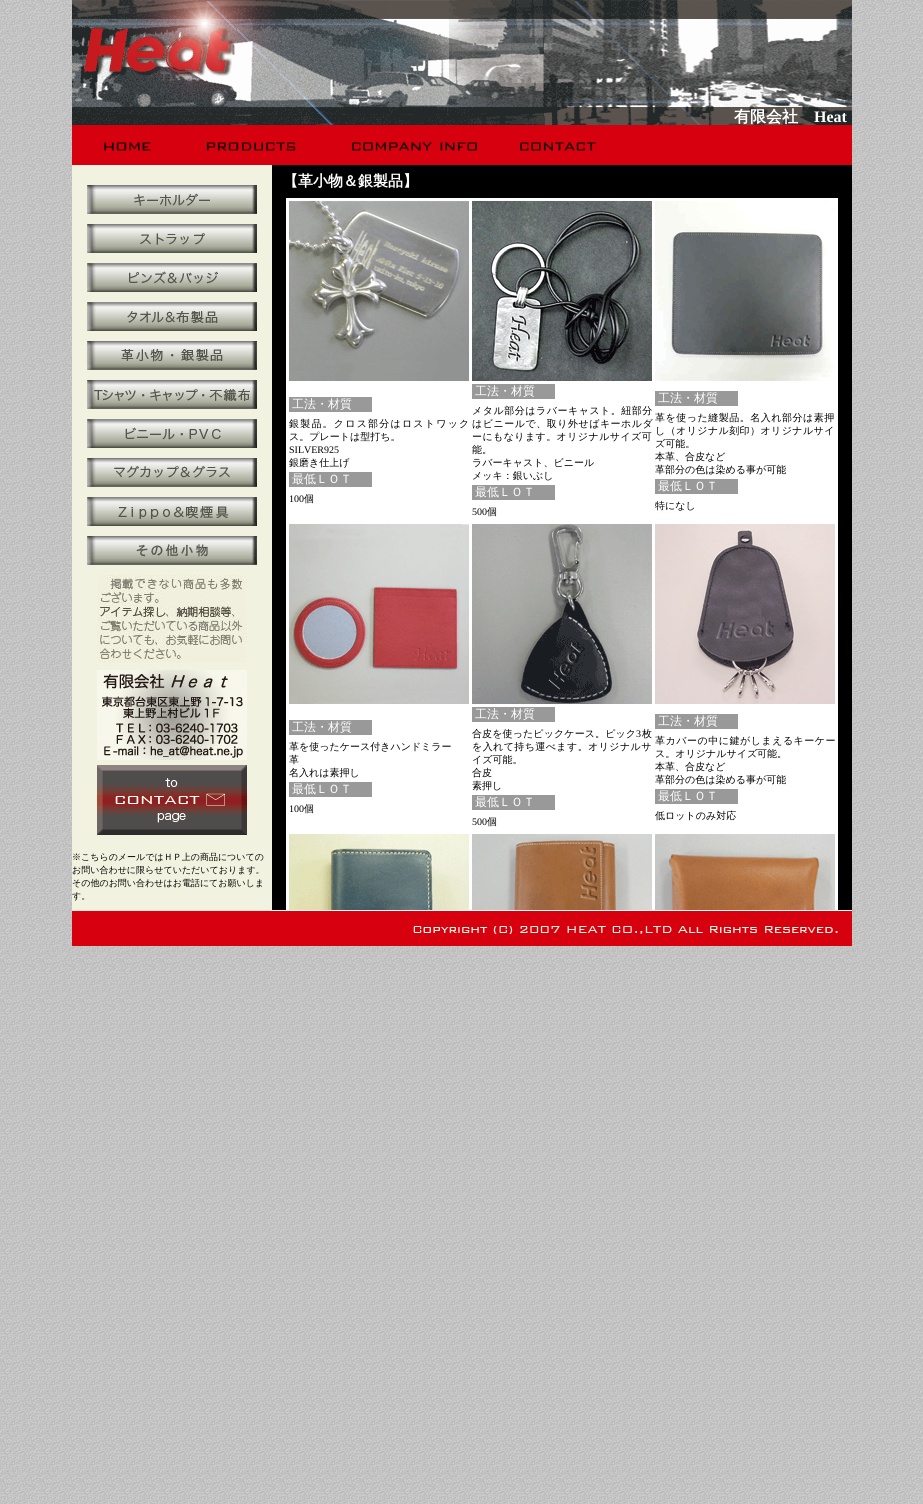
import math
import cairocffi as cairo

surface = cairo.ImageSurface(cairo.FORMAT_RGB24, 923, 1504)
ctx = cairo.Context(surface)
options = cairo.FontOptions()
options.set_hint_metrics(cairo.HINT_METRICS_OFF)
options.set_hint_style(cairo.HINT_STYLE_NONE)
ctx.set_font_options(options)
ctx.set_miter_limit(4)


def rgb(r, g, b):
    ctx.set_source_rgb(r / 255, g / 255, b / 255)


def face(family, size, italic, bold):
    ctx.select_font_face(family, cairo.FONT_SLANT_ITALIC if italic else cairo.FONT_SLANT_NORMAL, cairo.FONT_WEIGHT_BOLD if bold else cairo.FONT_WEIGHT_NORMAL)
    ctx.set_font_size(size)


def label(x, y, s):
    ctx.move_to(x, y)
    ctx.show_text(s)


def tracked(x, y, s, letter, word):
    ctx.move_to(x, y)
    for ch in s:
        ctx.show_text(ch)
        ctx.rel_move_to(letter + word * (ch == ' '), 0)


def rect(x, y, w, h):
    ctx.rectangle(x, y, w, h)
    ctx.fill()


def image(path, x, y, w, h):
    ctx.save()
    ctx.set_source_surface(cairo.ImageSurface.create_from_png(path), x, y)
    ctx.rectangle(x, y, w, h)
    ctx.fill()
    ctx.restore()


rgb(255, 255, 255)
ctx.paint()
image('image0.png', 0, 0, 923, 1504)
image('image1.png', 72, 0, 780, 125)
face('WenQuanYi Zen Hei', 16, 0, 1)
rgb(255, 255, 255)
label(734, 122, '有限会社')
face('Liberation Serif', 16, 0, 1)
label(814, 122, 'Heat')
rgb(215, 0, 15)
rect(617, 125, 235, 40)
image('image2.png', 72, 125, 113, 40)
image('image3.png', 185, 125, 137, 40)
image('image4.png', 322, 125, 180, 40)
image('image5.png', 502, 125, 115, 40)
rgb(0, 0, 0)
rect(272, 165, 580, 745)
face('WenQuanYi Zen Hei', 15, 0, 1)
rgb(255, 255, 255)
label(283, 186, '【革小物＆銀製品】')
rect(286, 198, 552, 712)
image('image6.png', 289, 201, 180, 180)
image('image7.png', 472, 201, 180, 180)
image('image8.png', 655, 201, 180, 180)
rgb(153, 153, 153)
rect(289, 397, 83, 15)
face('WenQuanYi Zen Hei Medium', 12, 0, 0)
rgb(255, 255, 255)
label(292, 408, '工法・材質')
face('WenQuanYi Zen Hei Medium', 10, 0, 0)
rgb(0, 0, 0)
tracked(289, 427, '銀製品。クロス部分はロストワック', 1.2, 0)
label(289, 440, 'ス。プレートは型打ち。')
face('Liberation Serif', 10, 0, 0)
label(289, 453, 'SILVER925')
face('WenQuanYi Zen Hei Medium', 10, 0, 0)
label(289, 466, '銀磨き仕上げ')
rgb(153, 153, 153)
rect(289, 472, 83, 15)
face('WenQuanYi Zen Hei Medium', 12, 0, 0)
rgb(255, 255, 255)
label(292, 483, '最低ＬＯＴ')
face('Liberation Serif', 10, 0, 0)
rgb(0, 0, 0)
label(289, 502, '100')
face('WenQuanYi Zen Hei Medium', 10, 0, 0)
label(304, 502, '個')
rgb(153, 153, 153)
rect(472, 384, 83, 15)
face('WenQuanYi Zen Hei Medium', 12, 0, 0)
rgb(255, 255, 255)
label(475, 395, '工法・材質')
face('WenQuanYi Zen Hei Medium', 10, 0, 0)
rgb(0, 0, 0)
tracked(472, 414, 'メタル部分はラバーキャスト。紐部分', 0.5, 0)
tracked(472, 427, 'はビニールで、取り外せばキーホルダ', 0.5, 0)
tracked(472, 440, 'ーにもなります。オリジナルサイズ可', 0.4, 0)
label(472, 453, '能。')
label(472, 466, 'ラバーキャスト、ビニール')
label(472, 479, 'メッキ：銀いぶし')
rgb(153, 153, 153)
rect(472, 485, 83, 15)
face('WenQuanYi Zen Hei Medium', 12, 0, 0)
rgb(255, 255, 255)
label(475, 496, '最低ＬＯＴ')
face('Liberation Serif', 10, 0, 0)
rgb(0, 0, 0)
label(472, 515, '500')
face('WenQuanYi Zen Hei Medium', 10, 0, 0)
label(487, 515, '個')
rgb(153, 153, 153)
rect(655, 391, 83, 15)
face('WenQuanYi Zen Hei Medium', 12, 0, 0)
rgb(255, 255, 255)
label(658, 402, '工法・材質')
face('WenQuanYi Zen Hei Medium', 10, 0, 0)
rgb(0, 0, 0)
tracked(655, 421, '革を使った縫製品。名入れ部分は素押', 0.5, 0)
tracked(655, 434, 'し（オリジナル刻印）オリジナルサイ', 0.4, 0)
label(655, 447, 'ズ可能。')
label(655, 460, '本革、合皮など')
label(655, 473, '革部分の色は染める事が可能')
rgb(153, 153, 153)
rect(655, 479, 83, 15)
face('WenQuanYi Zen Hei Medium', 12, 0, 0)
rgb(255, 255, 255)
label(658, 490, '最低ＬＯＴ')
face('WenQuanYi Zen Hei Medium', 10, 0, 0)
rgb(0, 0, 0)
label(655, 509, '特になし')
image('image9.png', 289, 524, 180, 180)
image('image10.png', 472, 524, 180, 180)
image('image11.png', 655, 524, 180, 180)
rgb(153, 153, 153)
rect(289, 720, 83, 15)
face('WenQuanYi Zen Hei Medium', 12, 0, 0)
rgb(255, 255, 255)
label(292, 731, '工法・材質')
face('WenQuanYi Zen Hei Medium', 10, 0, 0)
rgb(0, 0, 0)
label(289, 750, '革を使ったケース付きハンドミラー')
label(289, 763, '革')
label(289, 776, '名入れは素押し')
rgb(153, 153, 153)
rect(289, 782, 83, 15)
face('WenQuanYi Zen Hei Medium', 12, 0, 0)
rgb(255, 255, 255)
label(292, 793, '最低ＬＯＴ')
face('Liberation Serif', 10, 0, 0)
rgb(0, 0, 0)
label(289, 812, '100')
face('WenQuanYi Zen Hei Medium', 10, 0, 0)
label(304, 812, '個')
rgb(153, 153, 153)
rect(472, 707, 83, 15)
face('WenQuanYi Zen Hei Medium', 12, 0, 0)
rgb(255, 255, 255)
label(475, 718, '工法・材質')
face('WenQuanYi Zen Hei Medium', 10, 0, 0)
rgb(0, 0, 0)
tracked(472, 737, '合皮を使ったピックケース。ピック', 0.1, 0)
face('Liberation Serif', 10, 0, 0)
tracked(636, 737, '3', 0.1, 0)
face('WenQuanYi Zen Hei Medium', 10, 0, 0)
tracked(642, 737, '枚', 0.1, 0)
tracked(472, 750, 'を入れて持ち運べます。オリジナルサ', 0.4, 0)
label(472, 763, 'イズ可能。')
label(472, 776, '合皮')
label(472, 789, '素押し')
rgb(153, 153, 153)
rect(472, 795, 83, 15)
face('WenQuanYi Zen Hei Medium', 12, 0, 0)
rgb(255, 255, 255)
label(475, 806, '最低ＬＯＴ')
face('Liberation Serif', 10, 0, 0)
rgb(0, 0, 0)
label(472, 825, '500')
face('WenQuanYi Zen Hei Medium', 10, 0, 0)
label(487, 825, '個')
rgb(153, 153, 153)
rect(655, 714, 83, 15)
face('WenQuanYi Zen Hei Medium', 12, 0, 0)
rgb(255, 255, 255)
label(658, 725, '工法・材質')
face('WenQuanYi Zen Hei Medium', 10, 0, 0)
rgb(0, 0, 0)
tracked(655, 744, '革カバーの中に鍵がしまえるキーケー', 0.5, 0)
label(655, 757, 'ス。オリジナルサイズ可能。')
label(655, 770, '本革、合皮など')
label(655, 783, '革部分の色は染める事が可能')
rgb(153, 153, 153)
rect(655, 789, 83, 15)
face('WenQuanYi Zen Hei Medium', 12, 0, 0)
rgb(255, 255, 255)
label(658, 800, '最低ＬＯＴ')
face('WenQuanYi Zen Hei Medium', 10, 0, 0)
rgb(0, 0, 0)
label(655, 819, '低ロットのみ対応')
image('image12.png', 289, 834, 180, 76)
image('image13.png', 472, 834, 180, 76)
image('image14.png', 655, 834, 180, 76)
rgb(242, 242, 224)
rect(72, 165, 200, 745)
image('image15.png', 87, 185, 170, 29)
image('image16.png', 87, 224, 170, 29)
image('image17.png', 87, 263, 170, 29)
image('image18.png', 87, 302, 170, 29)
image('image19.png', 87, 341, 170, 29)
image('image20.png', 87, 380, 170, 29)
image('image21.png', 87, 419, 170, 29)
image('image22.png', 87, 458, 170, 29)
image('image23.png', 87, 497, 170, 29)
image('image24.png', 87, 536, 170, 29)
image('image25.png', 97, 575, 150, 88)
image('image26.png', 97, 670, 150, 90)
image('image27.png', 97, 765, 150, 70)
face('WenQuanYi Zen Hei Medium', 9, 0, 0)
rgb(0, 0, 0)
label(72, 860, '※こちらのメールではＨＰ上の商品についての')
label(72, 873, 'お問い合わせに限らせていただいております。')
label(72, 886, 'その他のお問い合わせはお電話にてお願いしま')
label(72, 899, 'す。')
image('image28.png', 72, 910, 780, 36)
surface.write_to_png('render.png')
